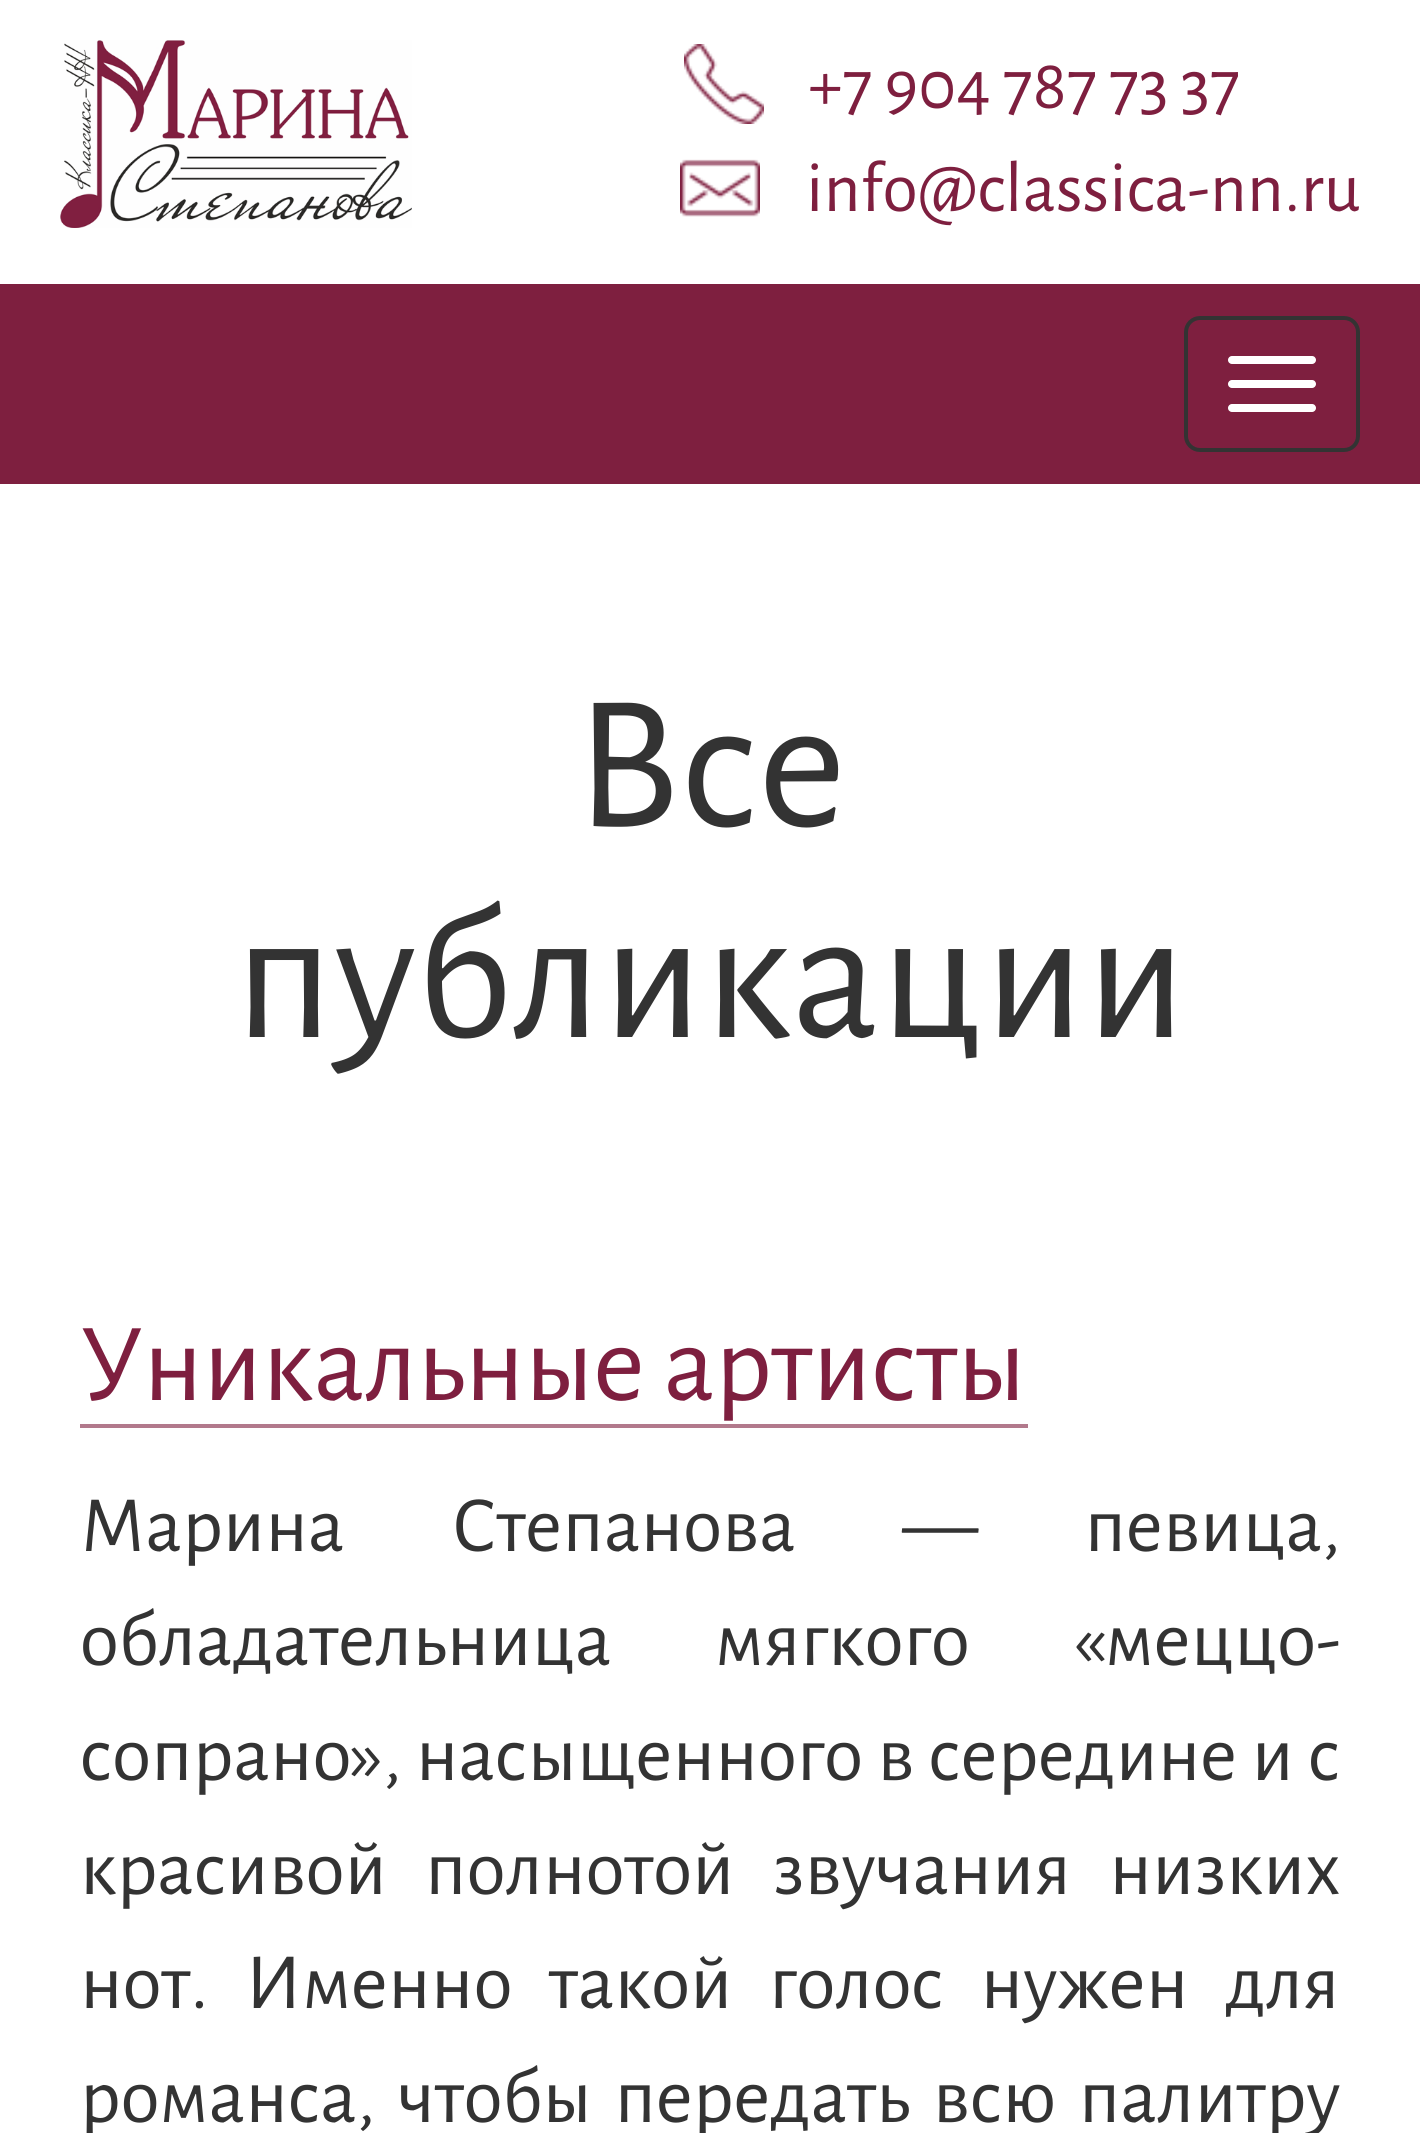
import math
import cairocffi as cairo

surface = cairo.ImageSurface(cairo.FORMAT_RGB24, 1420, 2133)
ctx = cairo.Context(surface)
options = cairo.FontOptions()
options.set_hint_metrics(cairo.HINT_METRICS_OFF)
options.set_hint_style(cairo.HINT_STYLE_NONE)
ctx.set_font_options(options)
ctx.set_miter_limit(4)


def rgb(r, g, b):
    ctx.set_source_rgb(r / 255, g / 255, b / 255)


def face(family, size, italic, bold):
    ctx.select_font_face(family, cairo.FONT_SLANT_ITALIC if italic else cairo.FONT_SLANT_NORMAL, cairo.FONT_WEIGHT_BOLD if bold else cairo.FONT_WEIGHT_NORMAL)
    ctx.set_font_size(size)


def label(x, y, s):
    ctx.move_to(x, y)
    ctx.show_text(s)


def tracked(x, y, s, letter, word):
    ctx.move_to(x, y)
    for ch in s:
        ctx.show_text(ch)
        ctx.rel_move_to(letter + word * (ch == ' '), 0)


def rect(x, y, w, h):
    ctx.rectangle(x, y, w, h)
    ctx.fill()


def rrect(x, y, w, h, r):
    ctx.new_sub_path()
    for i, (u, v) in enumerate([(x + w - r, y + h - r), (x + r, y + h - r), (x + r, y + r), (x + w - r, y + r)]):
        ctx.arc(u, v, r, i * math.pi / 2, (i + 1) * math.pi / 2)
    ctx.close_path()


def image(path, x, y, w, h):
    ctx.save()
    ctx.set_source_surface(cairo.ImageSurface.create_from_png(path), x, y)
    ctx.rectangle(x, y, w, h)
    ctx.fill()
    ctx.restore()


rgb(255, 255, 255)
ctx.paint()
image('image0.png', 60, 40, 352, 188)
image('image1.png', 684, 44, 80, 80)
face('Alegreya Sans', 72, 0, 0)
rgb(126, 31, 63)
label(808, 108, '+7 904 787 73 37')
image('image2.png', 680, 159, 80, 58)
label(806, 211, 'info@classica-nn.ru')
rect(0, 284, 1420, 200)
rrect(1186, 318, 172, 132, 14)
rgb(51, 51, 51)
ctx.set_line_width(4)
ctx.stroke()
rgb(255, 255, 255)
rrect(1228, 356, 88, 8, 4)
ctx.fill()
rrect(1228, 380, 88, 8, 4)
ctx.fill()
rrect(1228, 404, 88, 8, 4)
ctx.fill()
face('Alegreya Sans', 192, 0, 0)
rgb(51, 51, 51)
label(573, 826, 'Все')
label(234, 1037, 'публикации')
face('Alegreya Sans', 112, 0, 0)
rgb(126, 31, 63)
label(80, 1400, 'Уникальные артисты')
rgb(178, 121, 140)
rect(80, 1424, 948, 4)
face('Alegreya Sans', 80, 0, 0)
rgb(51, 51, 51)
tracked(80, 1551, 'Марина Степанова — певица,', 0, 94)
tracked(80, 1665, 'обладательница мягкого «меццо-', 0, 90)
tracked(80, 1780, 'сопрано», насыщенного в середине и с', 0, 1)
tracked(80, 1894, 'красивой полнотой звучания низких', 0, 25)
tracked(80, 2008, 'нот. Именно такой голос нужен для', 0, 23.5)
tracked(80, 2122, 'романса, чтобы передать всю палитру', 0, 9.5)
surface.write_to_png('render.png')
